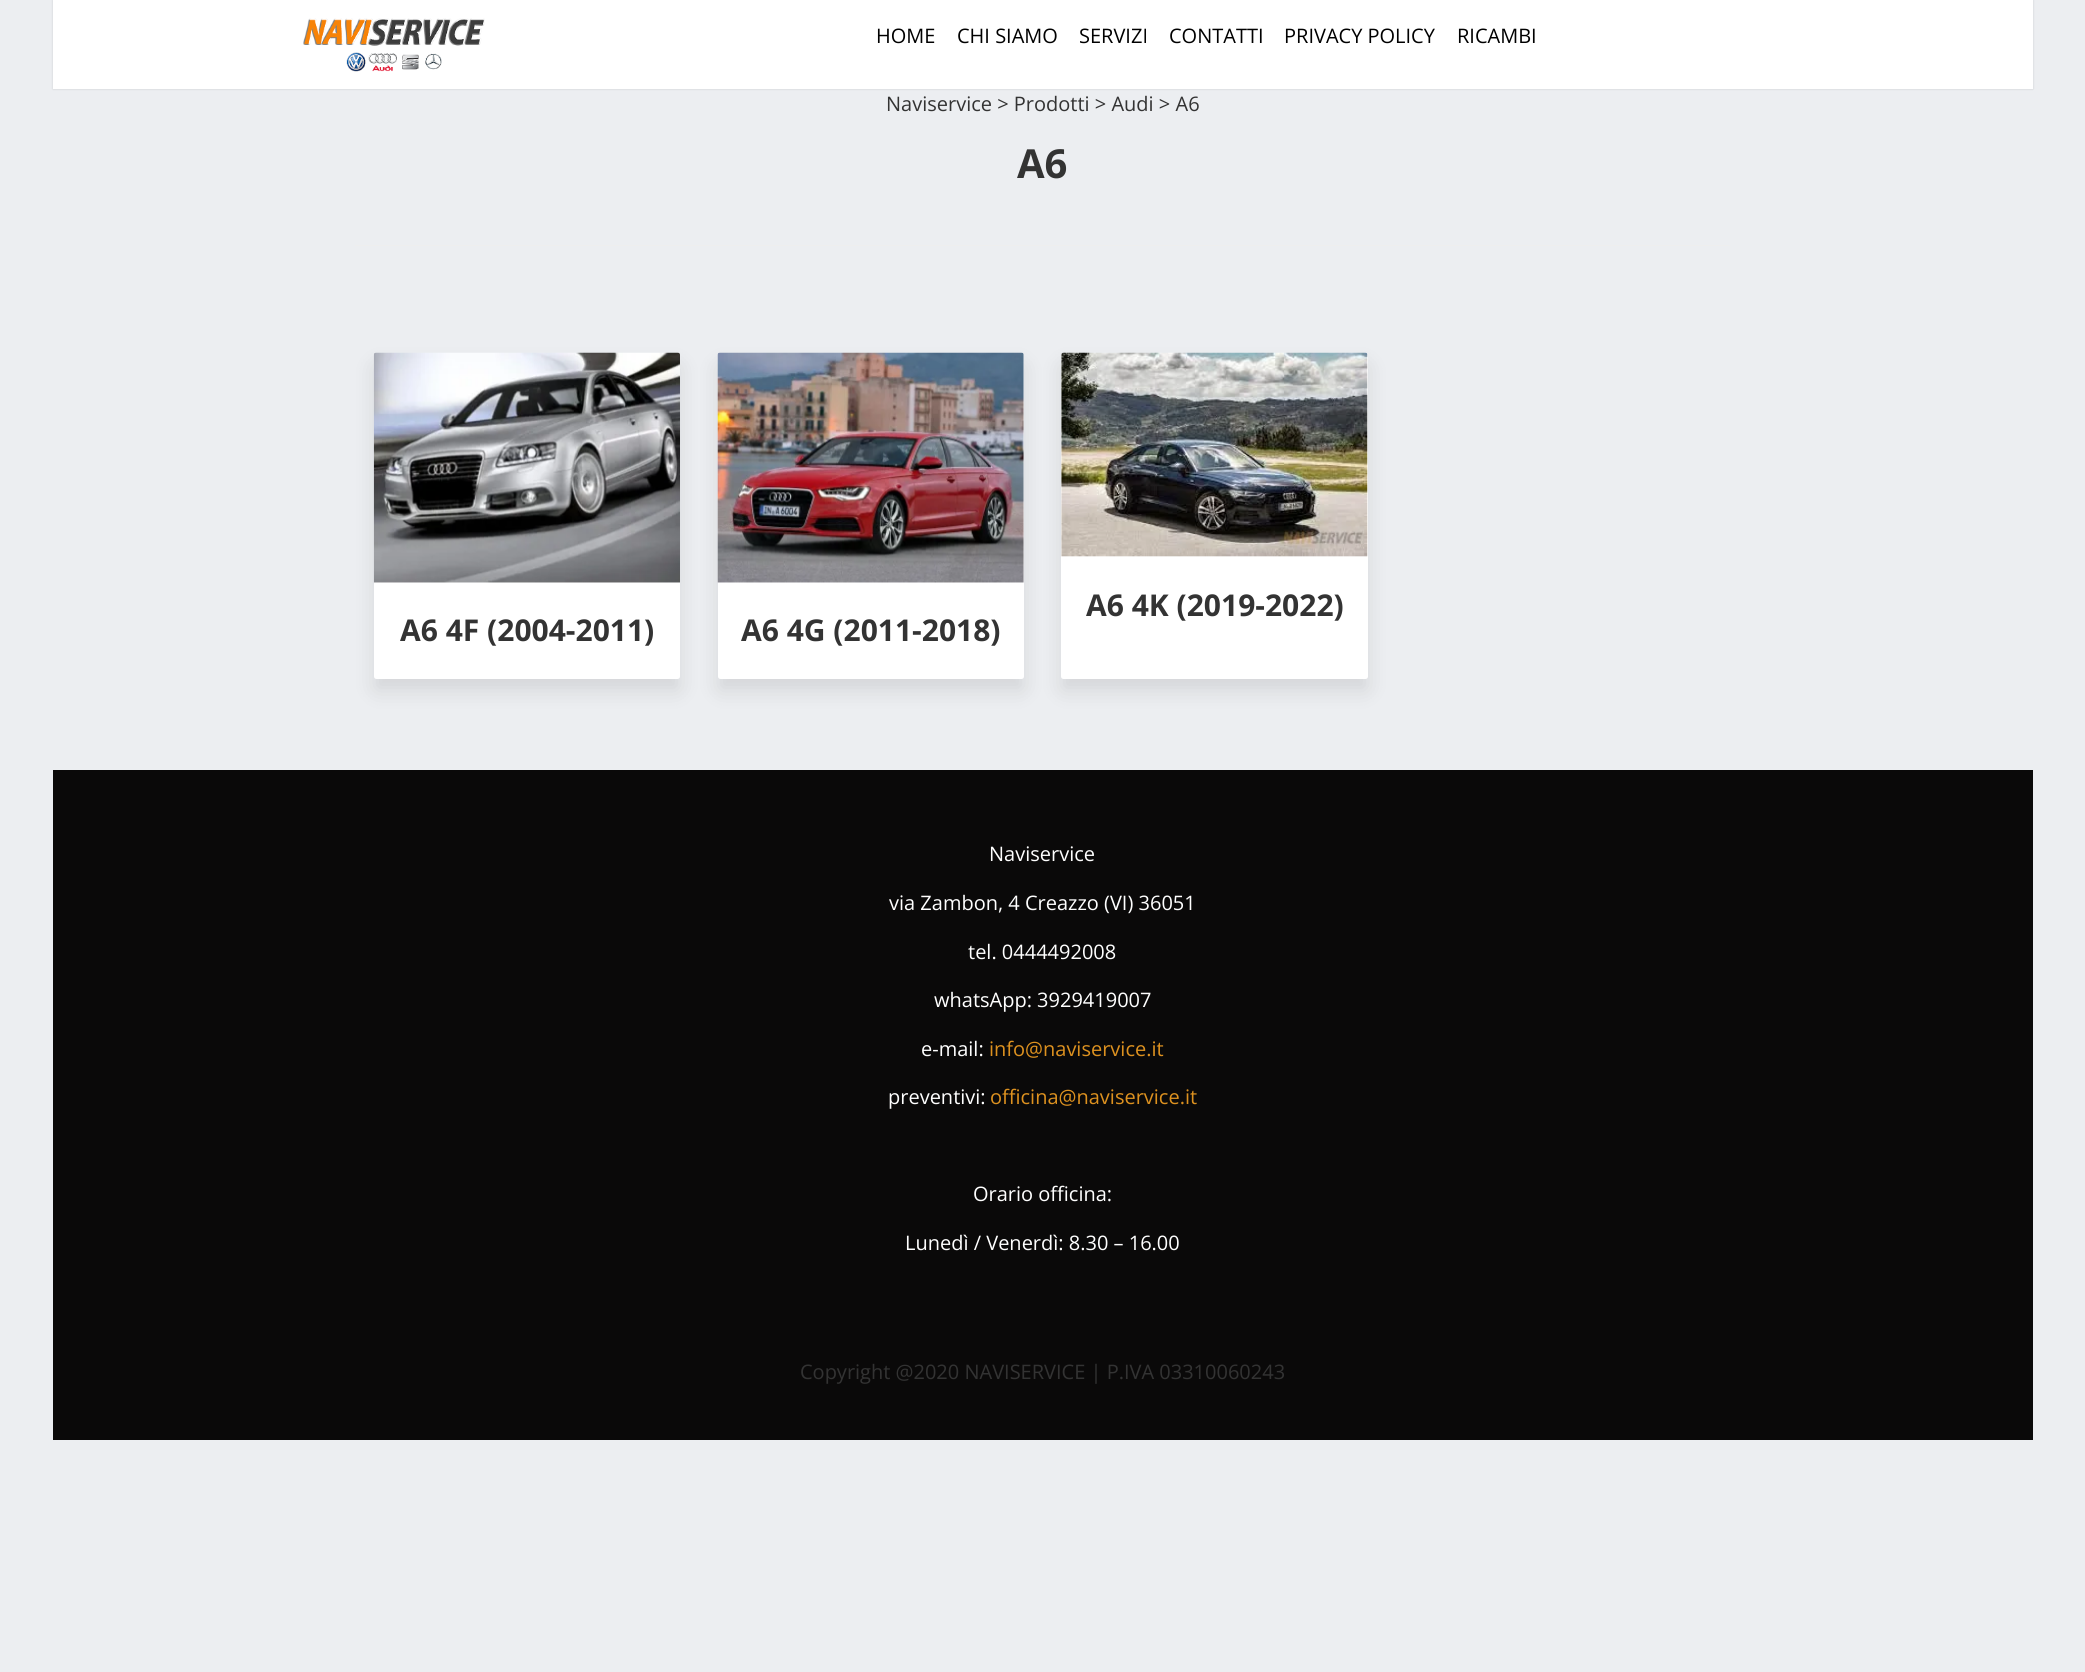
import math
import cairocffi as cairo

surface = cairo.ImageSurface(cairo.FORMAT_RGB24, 2085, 1672)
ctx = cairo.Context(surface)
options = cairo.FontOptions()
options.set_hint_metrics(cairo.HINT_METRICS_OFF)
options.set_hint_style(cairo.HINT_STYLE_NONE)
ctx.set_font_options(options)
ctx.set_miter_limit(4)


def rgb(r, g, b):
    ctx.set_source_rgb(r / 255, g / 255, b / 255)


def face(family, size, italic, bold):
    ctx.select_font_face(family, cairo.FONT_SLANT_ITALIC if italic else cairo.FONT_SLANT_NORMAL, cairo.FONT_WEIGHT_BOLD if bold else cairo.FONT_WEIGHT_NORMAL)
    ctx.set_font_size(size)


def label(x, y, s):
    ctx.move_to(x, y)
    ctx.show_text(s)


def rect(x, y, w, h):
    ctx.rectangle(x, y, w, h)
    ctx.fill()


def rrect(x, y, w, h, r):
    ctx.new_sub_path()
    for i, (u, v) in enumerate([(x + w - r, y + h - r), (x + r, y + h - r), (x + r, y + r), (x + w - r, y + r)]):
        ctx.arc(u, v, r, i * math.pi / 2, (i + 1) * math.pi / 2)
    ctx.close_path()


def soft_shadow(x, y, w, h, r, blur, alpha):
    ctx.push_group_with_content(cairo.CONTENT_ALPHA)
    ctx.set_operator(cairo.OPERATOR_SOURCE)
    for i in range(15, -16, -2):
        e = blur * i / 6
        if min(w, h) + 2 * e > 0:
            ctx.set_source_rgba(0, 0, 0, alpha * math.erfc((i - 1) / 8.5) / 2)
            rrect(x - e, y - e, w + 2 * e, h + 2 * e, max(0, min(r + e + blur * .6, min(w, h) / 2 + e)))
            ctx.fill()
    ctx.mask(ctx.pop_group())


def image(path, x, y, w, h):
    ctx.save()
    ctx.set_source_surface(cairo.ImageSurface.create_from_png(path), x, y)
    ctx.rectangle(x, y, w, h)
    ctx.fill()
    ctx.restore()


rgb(236, 238, 241)
ctx.paint()
rgb(6, 8, 8)
soft_shadow(53, 0, 1980, 89, 0, 1, 0.15)
rgb(255, 255, 255)
rect(53, 0, 1980, 89)
image('image0.png', 303, 18, 182, 54)
face('Open Sans', 20, 0, 0)
rgb(0, 0, 0)
label(876, 43, 'HOME')
label(957, 43, 'CHI SIAMO')
label(1079, 43, 'SERVIZI')
label(1169, 43, 'CONTATTI')
label(1284, 43, 'PRIVACY POLICY')
label(1457, 43, 'RICAMBI')
rgb(51, 51, 51)
label(886, 111, 'Naviservice > Prodotti > Audi > A6')
face('Open Sans', 40, 0, 1)
label(1017, 178, 'A6')
rgb(238, 238, 238)
rect(355, 245, 1375, 1)
rgb(0, 0, 0)
soft_shadow(1061, 365, 307, 326, 2.5, 10, 0.1)
rgb(255, 255, 255)
rrect(1061, 353, 307, 326, 2.5)
ctx.fill()
image('image1.png', 1061, 352, 307, 205)
face('Open Sans', 30, 0, 1)
rgb(51, 51, 51)
label(1086, 616, 'A6 4K (2019-2022)')
rgb(0, 0, 0)
soft_shadow(374, 365, 306, 326, 2.5, 10, 0.1)
rgb(255, 255, 255)
rrect(374, 353, 306, 326, 2.5)
ctx.fill()
image('image2.png', 373, 352, 307, 231)
rgb(51, 51, 51)
label(400, 641, 'A6 4F (2004-2011)')
rgb(0, 0, 0)
soft_shadow(718, 365, 306, 326, 2.5, 10, 0.1)
rgb(255, 255, 255)
rrect(718, 353, 306, 326, 2.5)
ctx.fill()
image('image3.png', 717, 352, 307, 231)
rgb(51, 51, 51)
label(741, 641, 'A6 4G (2011-2018)')
rgb(10, 9, 9)
rect(53, 770, 1980, 670)
face('Open Sans', 20, 0, 0)
rgb(255, 255, 255)
label(989, 861, 'Naviservice')
label(889, 910, 'via Zambon, 4 Creazzo (VI) 36051')
label(968, 959, 'tel. 0444492008')
label(934, 1007, 'whatsApp: 3929419007')
label(921, 1056, 'e-mail:')
rgb(221, 145, 31)
label(989, 1056, 'info@naviservice.it')
rgb(255, 255, 255)
label(888, 1104, 'preventivi:')
rgb(221, 145, 31)
label(990, 1104, 'officina@naviservice.it')
rgb(255, 255, 255)
label(973, 1201, 'Orario officina:')
label(905, 1250, 'Lunedì / Venerdì: 8.30 – 16.00')
rgb(51, 51, 51)
label(800, 1379, 'Copyright @2020 NAVISERVICE | P.IVA 03310060243')
surface.write_to_png('render.png')
